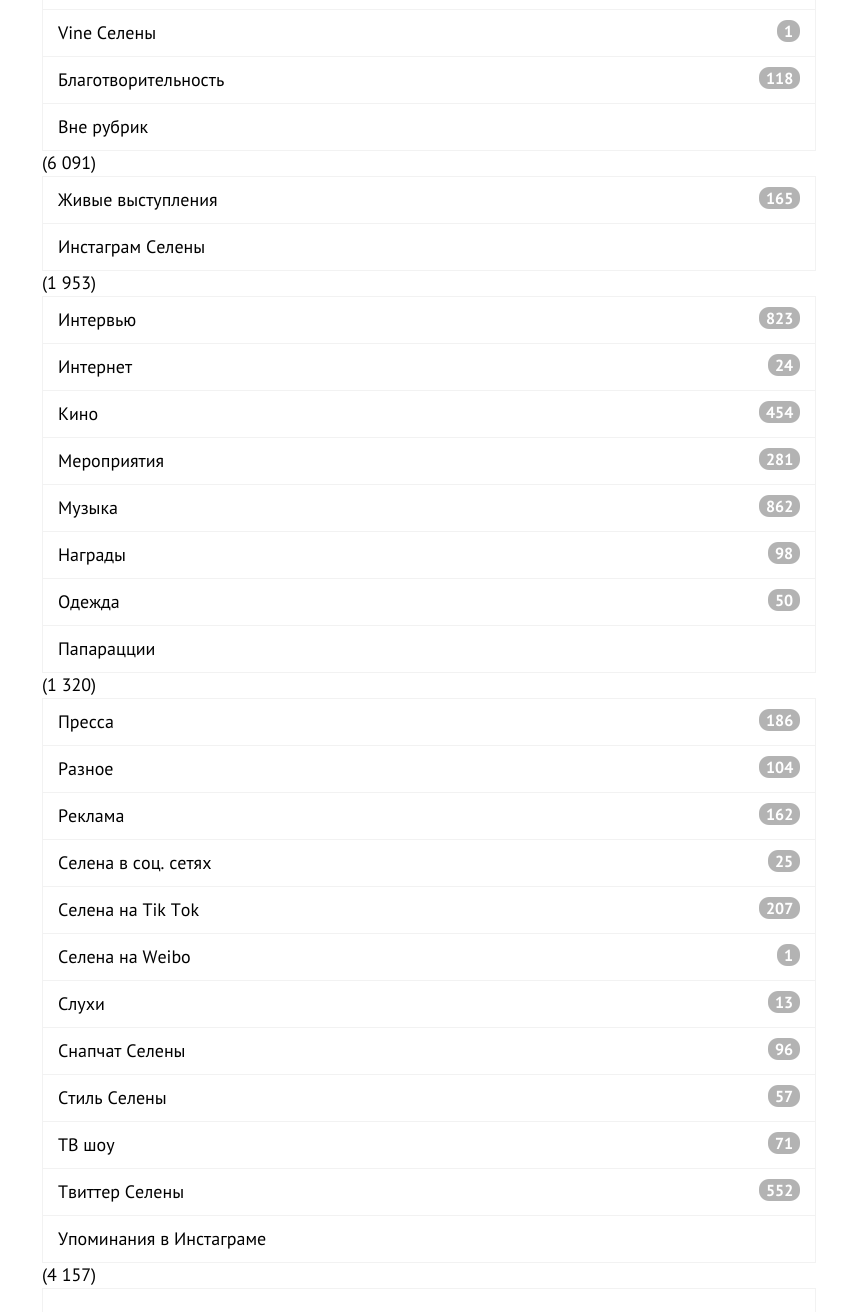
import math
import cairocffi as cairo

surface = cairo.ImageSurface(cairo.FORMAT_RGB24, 858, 1312)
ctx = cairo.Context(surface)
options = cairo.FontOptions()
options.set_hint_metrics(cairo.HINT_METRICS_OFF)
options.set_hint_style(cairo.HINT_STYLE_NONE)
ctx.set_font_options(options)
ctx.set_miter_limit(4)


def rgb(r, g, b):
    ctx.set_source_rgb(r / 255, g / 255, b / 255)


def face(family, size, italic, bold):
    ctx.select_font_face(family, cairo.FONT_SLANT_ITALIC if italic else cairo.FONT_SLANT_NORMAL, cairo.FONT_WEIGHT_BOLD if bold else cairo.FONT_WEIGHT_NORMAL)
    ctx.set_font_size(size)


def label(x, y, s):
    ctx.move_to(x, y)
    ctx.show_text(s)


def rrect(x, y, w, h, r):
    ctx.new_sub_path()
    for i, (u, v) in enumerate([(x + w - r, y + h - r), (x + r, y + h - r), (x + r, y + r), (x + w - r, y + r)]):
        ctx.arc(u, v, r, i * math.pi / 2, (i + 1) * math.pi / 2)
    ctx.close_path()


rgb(255, 255, 255)
ctx.paint()
ctx.rectangle(42.5, -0.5, 773, 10)
rgb(242, 242, 242)
ctx.set_line_width(1)
ctx.stroke()
ctx.rectangle(42.5, 9.5, 773, 47)
ctx.stroke()
face('PT Sans', 18, 0, 0)
rgb(0, 0, 0)
label(58, 39, 'Vine Селены')
rgb(179, 179, 179)
rrect(777, 20, 23, 22, 10)
ctx.fill()
face('PT Sans', 16, 0, 1)
rgb(255, 255, 255)
label(784, 37, '1')
ctx.rectangle(42.5, 56.5, 773, 47)
rgb(242, 242, 242)
ctx.stroke()
face('PT Sans', 18, 0, 0)
rgb(0, 0, 0)
label(58, 86, 'Благотворительность')
rgb(179, 179, 179)
rrect(759, 67, 41, 22, 10)
ctx.fill()
face('PT Sans', 16, 0, 1)
rgb(255, 255, 255)
label(766, 84, '118')
ctx.rectangle(42.5, 103.5, 773, 47)
rgb(242, 242, 242)
ctx.stroke()
face('PT Sans', 18, 0, 0)
rgb(0, 0, 0)
label(58, 133, 'Вне рубрик')
label(42, 169, '(6 091)')
ctx.rectangle(42.5, 176.5, 773, 47)
rgb(242, 242, 242)
ctx.stroke()
rgb(0, 0, 0)
label(58, 206, 'Живые выступления')
rgb(179, 179, 179)
rrect(759, 187, 41, 22, 10)
ctx.fill()
face('PT Sans', 16, 0, 1)
rgb(255, 255, 255)
label(766, 204, '165')
ctx.rectangle(42.5, 223.5, 773, 47)
rgb(242, 242, 242)
ctx.stroke()
face('PT Sans', 18, 0, 0)
rgb(0, 0, 0)
label(58, 253, 'Инстаграм Селены')
label(42, 289, '(1 953)')
ctx.rectangle(42.5, 296.5, 773, 47)
rgb(242, 242, 242)
ctx.stroke()
rgb(0, 0, 0)
label(58, 326, 'Интервью')
rgb(179, 179, 179)
rrect(759, 307, 41, 22, 10)
ctx.fill()
face('PT Sans', 16, 0, 1)
rgb(255, 255, 255)
label(766, 324, '823')
ctx.rectangle(42.5, 343.5, 773, 47)
rgb(242, 242, 242)
ctx.stroke()
face('PT Sans', 18, 0, 0)
rgb(0, 0, 0)
label(58, 373, 'Интернет')
rgb(179, 179, 179)
rrect(768, 354, 32, 22, 10)
ctx.fill()
face('PT Sans', 16, 0, 1)
rgb(255, 255, 255)
label(775, 371, '24')
ctx.rectangle(42.5, 390.5, 773, 47)
rgb(242, 242, 242)
ctx.stroke()
face('PT Sans', 18, 0, 0)
rgb(0, 0, 0)
label(58, 420, 'Кино')
rgb(179, 179, 179)
rrect(759, 401, 41, 22, 10)
ctx.fill()
face('PT Sans', 16, 0, 1)
rgb(255, 255, 255)
label(766, 418, '454')
ctx.rectangle(42.5, 437.5, 773, 47)
rgb(242, 242, 242)
ctx.stroke()
face('PT Sans', 18, 0, 0)
rgb(0, 0, 0)
label(58, 467, 'Мероприятия')
rgb(179, 179, 179)
rrect(759, 448, 41, 22, 10)
ctx.fill()
face('PT Sans', 16, 0, 1)
rgb(255, 255, 255)
label(766, 465, '281')
ctx.rectangle(42.5, 484.5, 773, 47)
rgb(242, 242, 242)
ctx.stroke()
face('PT Sans', 18, 0, 0)
rgb(0, 0, 0)
label(58, 514, 'Музыка')
rgb(179, 179, 179)
rrect(759, 495, 41, 22, 10)
ctx.fill()
face('PT Sans', 16, 0, 1)
rgb(255, 255, 255)
label(766, 512, '862')
ctx.rectangle(42.5, 531.5, 773, 47)
rgb(242, 242, 242)
ctx.stroke()
face('PT Sans', 18, 0, 0)
rgb(0, 0, 0)
label(58, 561, 'Награды')
rgb(179, 179, 179)
rrect(768, 542, 32, 22, 10)
ctx.fill()
face('PT Sans', 16, 0, 1)
rgb(255, 255, 255)
label(775, 559, '98')
ctx.rectangle(42.5, 578.5, 773, 47)
rgb(242, 242, 242)
ctx.stroke()
face('PT Sans', 18, 0, 0)
rgb(0, 0, 0)
label(58, 608, 'Одежда')
rgb(179, 179, 179)
rrect(768, 589, 32, 22, 10)
ctx.fill()
face('PT Sans', 16, 0, 1)
rgb(255, 255, 255)
label(775, 606, '50')
ctx.rectangle(42.5, 625.5, 773, 47)
rgb(242, 242, 242)
ctx.stroke()
face('PT Sans', 18, 0, 0)
rgb(0, 0, 0)
label(58, 655, 'Папарацции')
label(42, 691, '(1 320)')
ctx.rectangle(42.5, 698.5, 773, 47)
rgb(242, 242, 242)
ctx.stroke()
rgb(0, 0, 0)
label(58, 728, 'Пресса')
rgb(179, 179, 179)
rrect(759, 709, 41, 22, 10)
ctx.fill()
face('PT Sans', 16, 0, 1)
rgb(255, 255, 255)
label(766, 726, '186')
ctx.rectangle(42.5, 745.5, 773, 47)
rgb(242, 242, 242)
ctx.stroke()
face('PT Sans', 18, 0, 0)
rgb(0, 0, 0)
label(58, 775, 'Разное')
rgb(179, 179, 179)
rrect(759, 756, 41, 22, 10)
ctx.fill()
face('PT Sans', 16, 0, 1)
rgb(255, 255, 255)
label(766, 773, '104')
ctx.rectangle(42.5, 792.5, 773, 47)
rgb(242, 242, 242)
ctx.stroke()
face('PT Sans', 18, 0, 0)
rgb(0, 0, 0)
label(58, 822, 'Реклама')
rgb(179, 179, 179)
rrect(759, 803, 41, 22, 10)
ctx.fill()
face('PT Sans', 16, 0, 1)
rgb(255, 255, 255)
label(766, 820, '162')
ctx.rectangle(42.5, 839.5, 773, 47)
rgb(242, 242, 242)
ctx.stroke()
face('PT Sans', 18, 0, 0)
rgb(0, 0, 0)
label(58, 869, 'Селена в соц. сетях')
rgb(179, 179, 179)
rrect(768, 850, 32, 22, 10)
ctx.fill()
face('PT Sans', 16, 0, 1)
rgb(255, 255, 255)
label(775, 867, '25')
ctx.rectangle(42.5, 886.5, 773, 47)
rgb(242, 242, 242)
ctx.stroke()
face('PT Sans', 18, 0, 0)
rgb(0, 0, 0)
label(58, 916, 'Селена на Tik Tok')
rgb(179, 179, 179)
rrect(759, 897, 41, 22, 10)
ctx.fill()
face('PT Sans', 16, 0, 1)
rgb(255, 255, 255)
label(766, 914, '207')
ctx.rectangle(42.5, 933.5, 773, 47)
rgb(242, 242, 242)
ctx.stroke()
face('PT Sans', 18, 0, 0)
rgb(0, 0, 0)
label(58, 963, 'Селена на Weibo')
rgb(179, 179, 179)
rrect(777, 944, 23, 22, 10)
ctx.fill()
face('PT Sans', 16, 0, 1)
rgb(255, 255, 255)
label(784, 961, '1')
ctx.rectangle(42.5, 980.5, 773, 47)
rgb(242, 242, 242)
ctx.stroke()
face('PT Sans', 18, 0, 0)
rgb(0, 0, 0)
label(58, 1010, 'Слухи')
rgb(179, 179, 179)
rrect(768, 991, 32, 22, 10)
ctx.fill()
face('PT Sans', 16, 0, 1)
rgb(255, 255, 255)
label(775, 1008, '13')
ctx.rectangle(42.5, 1027.5, 773, 47)
rgb(242, 242, 242)
ctx.stroke()
face('PT Sans', 18, 0, 0)
rgb(0, 0, 0)
label(58, 1057, 'Снапчат Селены')
rgb(179, 179, 179)
rrect(768, 1038, 32, 22, 10)
ctx.fill()
face('PT Sans', 16, 0, 1)
rgb(255, 255, 255)
label(775, 1055, '96')
ctx.rectangle(42.5, 1074.5, 773, 47)
rgb(242, 242, 242)
ctx.stroke()
face('PT Sans', 18, 0, 0)
rgb(0, 0, 0)
label(58, 1104, 'Стиль Селены')
rgb(179, 179, 179)
rrect(768, 1085, 32, 22, 10)
ctx.fill()
face('PT Sans', 16, 0, 1)
rgb(255, 255, 255)
label(775, 1102, '57')
ctx.rectangle(42.5, 1121.5, 773, 47)
rgb(242, 242, 242)
ctx.stroke()
face('PT Sans', 18, 0, 0)
rgb(0, 0, 0)
label(58, 1151, 'ТВ шоу')
rgb(179, 179, 179)
rrect(768, 1132, 32, 22, 10)
ctx.fill()
face('PT Sans', 16, 0, 1)
rgb(255, 255, 255)
label(775, 1149, '71')
ctx.rectangle(42.5, 1168.5, 773, 47)
rgb(242, 242, 242)
ctx.stroke()
face('PT Sans', 18, 0, 0)
rgb(0, 0, 0)
label(58, 1198, 'Твиттер Селены')
rgb(179, 179, 179)
rrect(759, 1179, 41, 22, 10)
ctx.fill()
face('PT Sans', 16, 0, 1)
rgb(255, 255, 255)
label(766, 1196, '552')
ctx.rectangle(42.5, 1215.5, 773, 47)
rgb(242, 242, 242)
ctx.stroke()
face('PT Sans', 18, 0, 0)
rgb(0, 0, 0)
label(58, 1245, 'Упоминания в Инстаграме')
label(42, 1281, '(4 157)')
ctx.rectangle(42.5, 1288.5, 773, 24)
rgb(242, 242, 242)
ctx.stroke()
surface.write_to_png('render.png')
